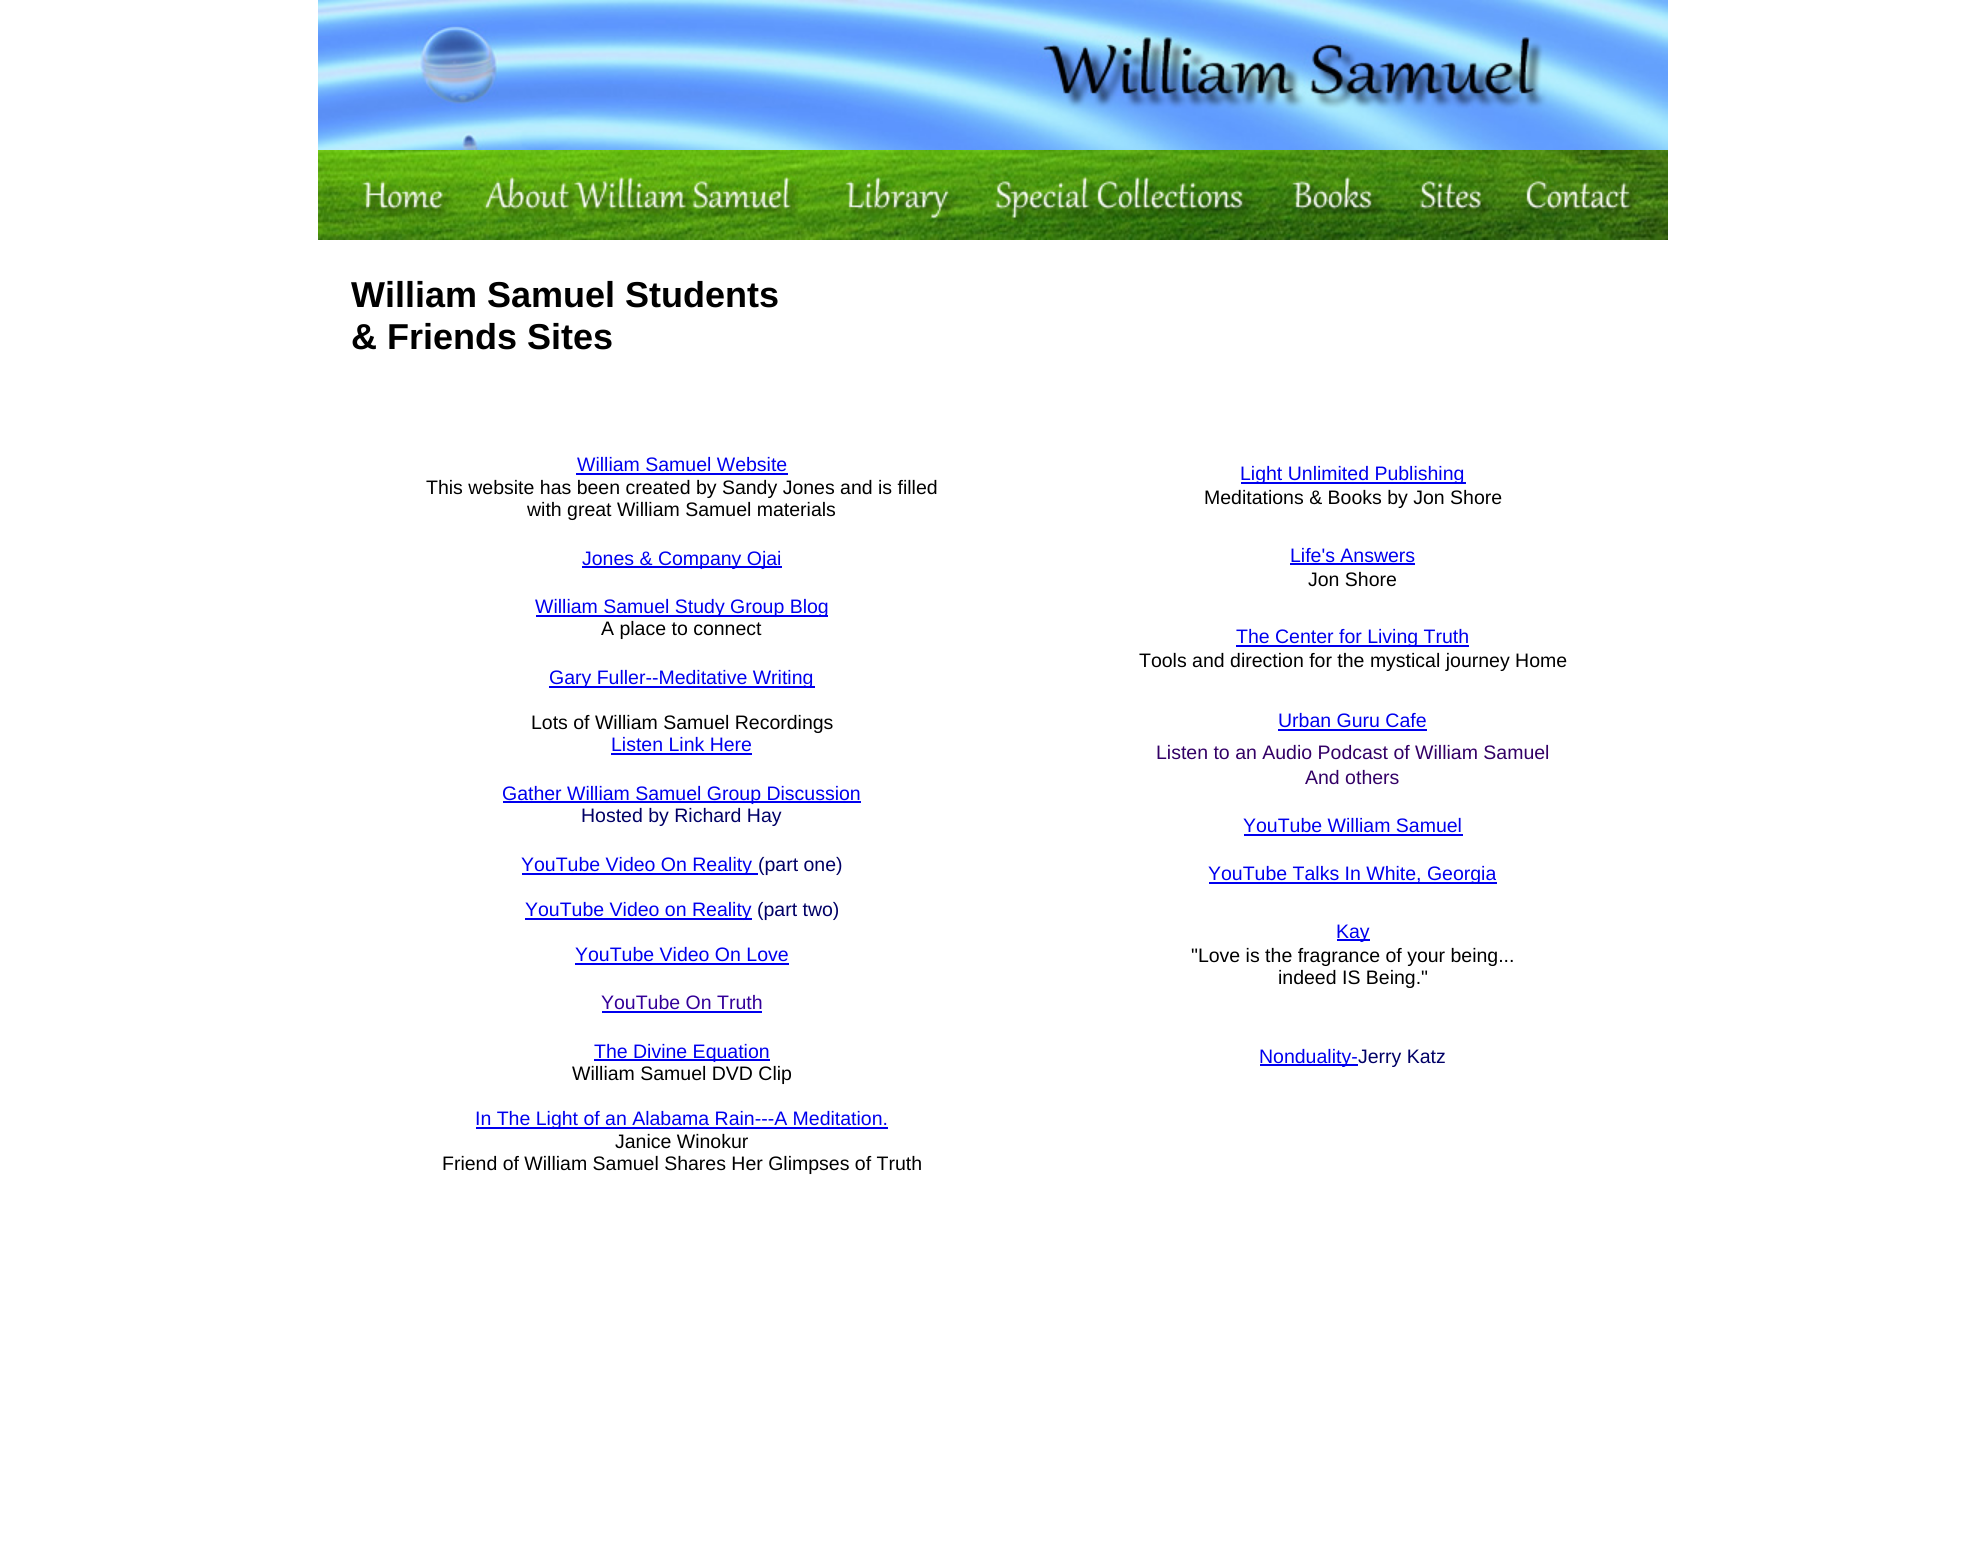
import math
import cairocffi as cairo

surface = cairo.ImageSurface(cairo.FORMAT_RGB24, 1986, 1557)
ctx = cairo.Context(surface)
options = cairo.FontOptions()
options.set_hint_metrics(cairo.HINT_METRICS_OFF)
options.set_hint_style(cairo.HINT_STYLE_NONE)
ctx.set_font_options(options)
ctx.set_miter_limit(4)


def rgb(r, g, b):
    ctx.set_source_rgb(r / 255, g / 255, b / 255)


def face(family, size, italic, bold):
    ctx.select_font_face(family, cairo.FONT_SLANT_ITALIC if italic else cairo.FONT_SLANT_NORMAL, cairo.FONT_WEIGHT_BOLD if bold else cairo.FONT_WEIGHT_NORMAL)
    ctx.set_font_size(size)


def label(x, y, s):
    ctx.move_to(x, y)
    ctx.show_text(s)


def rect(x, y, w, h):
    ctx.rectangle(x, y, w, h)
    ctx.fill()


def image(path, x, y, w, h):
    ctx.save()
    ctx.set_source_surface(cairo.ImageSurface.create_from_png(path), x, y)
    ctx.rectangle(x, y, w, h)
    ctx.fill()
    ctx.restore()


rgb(255, 255, 255)
ctx.paint()
image('image0.png', 318, 0, 1350, 150)
image('image1.png', 318, 150, 1350, 90)
face('Liberation Sans', 36, 0, 1)
rgb(0, 0, 0)
label(351, 307, 'William Samuel Students')
label(351, 349, '& Friends Sites')
face('Liberation Sans', 19.5, 0, 0)
rgb(0, 0, 238)
label(577, 471, 'William Samuel Website')
rect(576, 473, 212, 2)
rgb(0, 0, 0)
label(426, 494, 'This website has been created by Sandy Jones and is filled')
label(527, 516, 'with great William Samuel materials')
rgb(0, 0, 238)
rect(582, 566, 200, 2)
label(582, 565, 'Jones & Company Ojai')
rect(536, 615, 292, 2)
label(535, 613, 'William Samuel Study Group Blog')
rgb(0, 0, 0)
label(601, 635, 'A place to connect')
rgb(0, 0, 238)
rect(549, 686, 266, 2)
label(549, 684, 'Gary Fuller--Meditative Writing')
rgb(0, 0, 0)
label(531, 729, 'Lots of William Samuel Recordings')
rgb(0, 0, 238)
label(611, 751, 'Listen Link Here')
rect(611, 753, 141, 2)
rect(503, 801, 358, 2)
label(502, 800, 'Gather William Samuel Group Discussion')
rgb(0, 0, 102)
label(581, 822, 'Hosted by Richard Hay')
rgb(0, 0, 238)
rect(522, 873, 236, 2)
label(521, 871, 'YouTube Video On Reality')
rgb(0, 0, 102)
label(758, 871, '(part one)')
rgb(0, 0, 238)
rect(525, 918, 227, 2)
label(525, 916, 'YouTube Video on Reality')
rgb(0, 0, 102)
label(757, 916, '(part two)')
rgb(0, 0, 238)
label(575, 961, 'YouTube Video On Love')
rect(575, 963, 214, 2)
rgb(51, 0, 153)
label(601, 1009, 'YouTube On Truth')
rgb(0, 0, 238)
rect(602, 1011, 160, 2)
rect(594, 1059, 176, 2)
label(594, 1058, 'The Divine Equation')
rgb(0, 0, 0)
label(572, 1080, 'William Samuel DVD Clip')
rgb(0, 0, 238)
rect(476, 1127, 412, 2)
label(475, 1125, 'In The Light of an Alabama Rain---A Meditation.')
rgb(0, 0, 0)
label(615, 1148, 'Janice Winokur')
label(442, 1170, 'Friend of William Samuel Shares Her Glimpses of Truth')
rgb(0, 0, 238)
rect(1241, 482, 225, 2)
label(1240, 480, 'Light Unlimited Publishing')
rgb(0, 0, 0)
label(1204, 504, 'Meditations & Books by Jon Shore')
rgb(0, 0, 238)
label(1290, 562, 'Life\'s Answers')
rect(1290, 563, 125, 2)
rgb(0, 0, 0)
label(1308, 586, 'Jon Shore')
rgb(0, 0, 238)
rect(1236, 645, 233, 2)
label(1236, 643, 'The Center for Living Truth')
rgb(0, 0, 0)
label(1139, 667, 'Tools and direction for the mystical journey Home')
rgb(0, 0, 238)
label(1278, 727, 'Urban Guru Cafe')
rect(1278, 729, 149, 2)
rgb(51, 0, 102)
label(1156, 759, 'Listen to an Audio Podcast of William Samuel')
label(1305, 784, 'And others')
rgb(0, 0, 238)
label(1243, 832, 'YouTube William Samuel')
rect(1244, 834, 219, 2)
rect(1209, 882, 288, 2)
label(1208, 880, 'YouTube Talks In White, Georgia')
rect(1337, 939, 33, 2)
label(1336, 938, 'Kay')
rgb(0, 0, 0)
label(1191, 962, '"Love is the fragrance of your being...')
label(1278, 984, 'indeed IS Being."')
rgb(0, 0, 238)
rect(1260, 1064, 98, 2)
label(1259, 1063, 'Nonduality-')
rgb(0, 0, 102)
label(1358, 1063, 'Jerry Katz')
surface.write_to_png('render.png')
